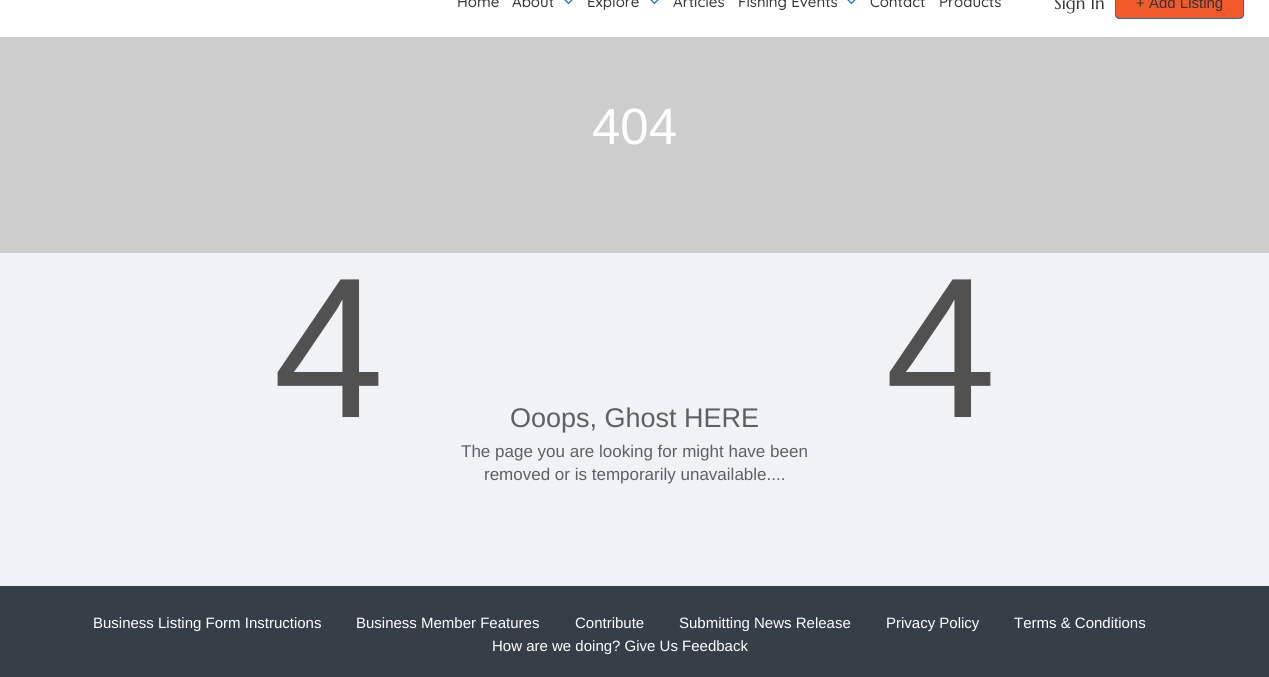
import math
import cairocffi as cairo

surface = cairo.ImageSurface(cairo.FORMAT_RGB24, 1269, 677)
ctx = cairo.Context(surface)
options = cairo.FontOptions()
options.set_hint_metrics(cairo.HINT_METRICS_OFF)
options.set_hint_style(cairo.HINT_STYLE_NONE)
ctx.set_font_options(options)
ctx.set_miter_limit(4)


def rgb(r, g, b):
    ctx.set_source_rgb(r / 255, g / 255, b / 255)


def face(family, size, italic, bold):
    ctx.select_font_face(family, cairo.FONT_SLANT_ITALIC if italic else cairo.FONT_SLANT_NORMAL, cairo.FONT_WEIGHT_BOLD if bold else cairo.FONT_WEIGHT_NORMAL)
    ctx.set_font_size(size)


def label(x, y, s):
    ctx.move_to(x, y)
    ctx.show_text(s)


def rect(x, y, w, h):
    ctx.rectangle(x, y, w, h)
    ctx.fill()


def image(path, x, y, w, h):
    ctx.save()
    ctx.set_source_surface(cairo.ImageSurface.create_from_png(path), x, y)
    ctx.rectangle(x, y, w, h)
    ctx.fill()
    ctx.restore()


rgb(255, 255, 255)
ctx.paint()
face('Quicksand Medium', 15, 0, 0)
rgb(51, 51, 51)
label(457, 7, 'Home')
label(512, 7, 'About')
image('image0.png', 564, 0, 9, 5)
label(587, 7, 'Explore')
image('image0.png', 650, 0, 9, 5)
label(673, 7, 'Articles')
label(738, 7, 'Fishing Events')
image('image0.png', 847, 0, 9, 5)
label(870, 7, 'Contact')
label(939, 7, 'Products')
face('Marcellus', 17, 0, 0)
label(1054, 9, 'Sign In')
rgb(241, 90, 41)
ctx.new_path()
ctx.move_to(1120, -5)
ctx.line_to(1145, -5)
ctx.line_to(1145, 19)
ctx.line_to(1120, 19)
ctx.curve_to(1117, 19, 1115, 17, 1115, 14)
ctx.line_to(1115, 0)
ctx.curve_to(1115, -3, 1117, -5, 1120, -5)
ctx.close_path()
ctx.fill()
rgb(30, 115, 190)
ctx.set_fill_rule(cairo.FILL_RULE_EVEN_ODD)
ctx.new_path()
ctx.move_to(1120, -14)
ctx.line_to(1145, -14)
ctx.line_to(1145, 19)
ctx.line_to(1120, 19)
ctx.curve_to(1117, 19, 1115, 17, 1115, 14)
ctx.line_to(1115, -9)
ctx.curve_to(1115, -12, 1117, -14, 1120, -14)
ctx.close_path()
ctx.move_to(1120, -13)
ctx.line_to(1145, -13)
ctx.line_to(1145, 18)
ctx.line_to(1120, 18)
ctx.curve_to(1118, 18, 1116, 16, 1116, 14)
ctx.line_to(1116, -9)
ctx.curve_to(1116, -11, 1118, -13, 1120, -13)
ctx.close_path()
ctx.fill()
rgb(241, 90, 41)
ctx.new_path()
ctx.move_to(1145, -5)
ctx.line_to(1239, -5)
ctx.curve_to(1242, -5, 1244, -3, 1244, 0)
ctx.line_to(1244, 14)
ctx.curve_to(1244, 17, 1242, 19, 1239, 19)
ctx.line_to(1145, 19)
ctx.close_path()
ctx.fill()
rgb(30, 115, 190)
ctx.new_path()
ctx.move_to(1145, -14)
ctx.line_to(1239, -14)
ctx.curve_to(1242, -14, 1244, -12, 1244, -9)
ctx.line_to(1244, 14)
ctx.curve_to(1244, 17, 1242, 19, 1239, 19)
ctx.line_to(1145, 19)
ctx.close_path()
ctx.move_to(1145, -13)
ctx.line_to(1239, -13)
ctx.curve_to(1241, -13, 1243, -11, 1243, -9)
ctx.line_to(1243, 14)
ctx.curve_to(1243, 16, 1241, 18, 1239, 18)
ctx.line_to(1145, 18)
ctx.close_path()
ctx.fill()
face('Liberation Serif', 15, 0, 1)
rgb(51, 51, 51)
label(1136, 8, '+')
face('Liberation Sans', 15, 0, 0)
label(1149, 8, 'Add Listing')
rgb(205, 205, 205)
rect(0, 37, 1269, 216)
face('Liberation Sans', 51, 0, 0)
rgb(255, 255, 255)
label(592, 144, '404')
rgb(239, 243, 246)
rect(0, 253, 1269, 333)
face('Liberation Sans', 200, 0, 0)
rgb(81, 81, 81)
label(273, 417, '4')
label(885, 417, '4')
face('Liberation Sans', 27, 0, 0)
rgb(96, 96, 96)
label(510, 427, 'Ooops, Ghost HERE')
face('Liberation Sans', 17, 0, 0)
label(461, 457, 'The page you are looking for might have been')
label(484, 480, 'removed or is temporarily unavailable....')
rgb(54, 63, 72)
rect(0, 586, 1269, 91)
face('Liberation Sans', 15, 0, 0)
rgb(255, 255, 255)
label(93, 628, 'Business Listing Form Instructions')
label(356, 628, 'Business Member Features')
label(575, 628, 'Contribute')
label(679, 628, 'Submitting News Release')
label(886, 628, 'Privacy Policy')
label(1014, 628, 'Terms & Conditions')
label(492, 651, 'How are we doing? Give Us Feedback')
surface.write_to_png('render.png')
